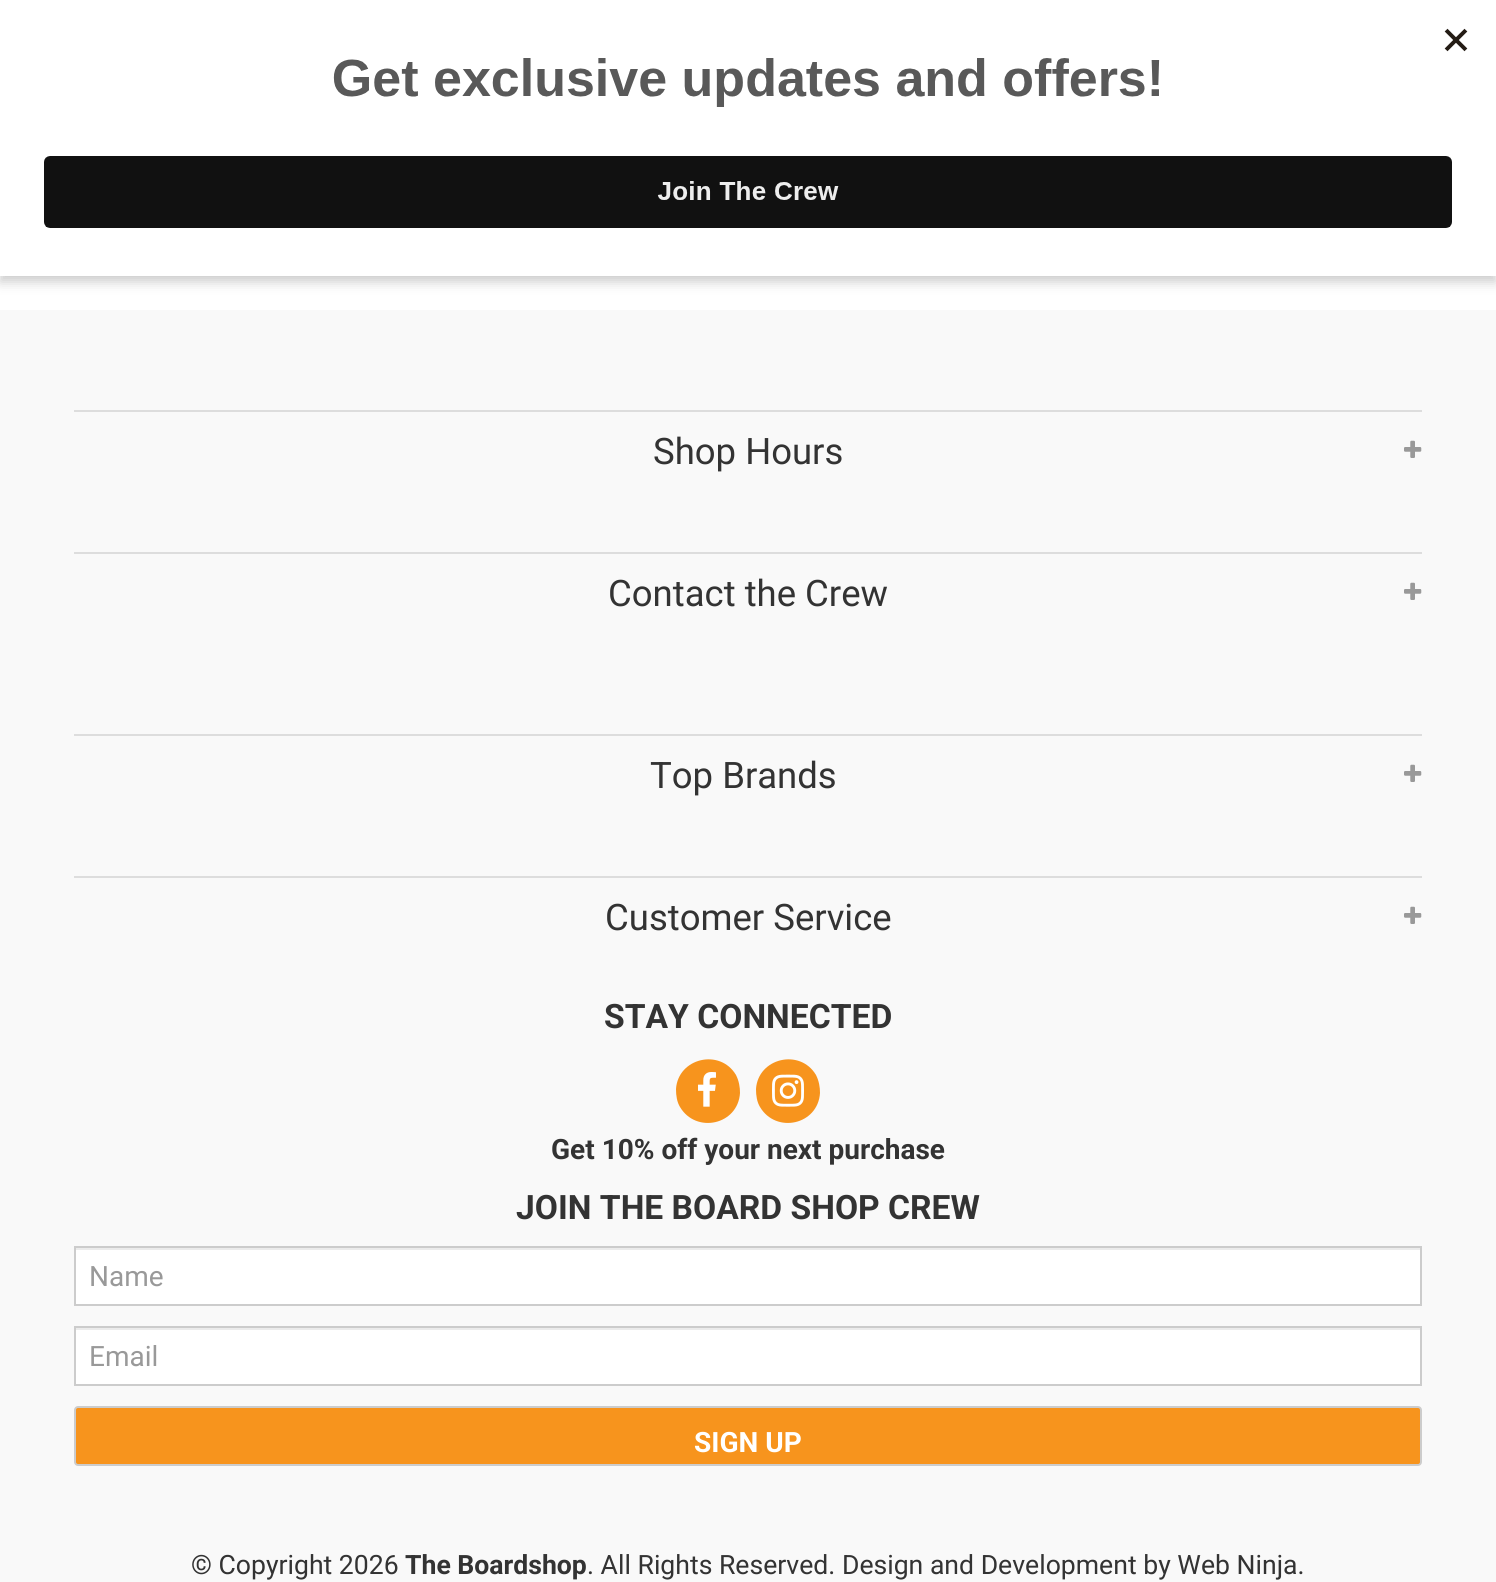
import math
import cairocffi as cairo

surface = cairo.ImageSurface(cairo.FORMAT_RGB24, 1496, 1582)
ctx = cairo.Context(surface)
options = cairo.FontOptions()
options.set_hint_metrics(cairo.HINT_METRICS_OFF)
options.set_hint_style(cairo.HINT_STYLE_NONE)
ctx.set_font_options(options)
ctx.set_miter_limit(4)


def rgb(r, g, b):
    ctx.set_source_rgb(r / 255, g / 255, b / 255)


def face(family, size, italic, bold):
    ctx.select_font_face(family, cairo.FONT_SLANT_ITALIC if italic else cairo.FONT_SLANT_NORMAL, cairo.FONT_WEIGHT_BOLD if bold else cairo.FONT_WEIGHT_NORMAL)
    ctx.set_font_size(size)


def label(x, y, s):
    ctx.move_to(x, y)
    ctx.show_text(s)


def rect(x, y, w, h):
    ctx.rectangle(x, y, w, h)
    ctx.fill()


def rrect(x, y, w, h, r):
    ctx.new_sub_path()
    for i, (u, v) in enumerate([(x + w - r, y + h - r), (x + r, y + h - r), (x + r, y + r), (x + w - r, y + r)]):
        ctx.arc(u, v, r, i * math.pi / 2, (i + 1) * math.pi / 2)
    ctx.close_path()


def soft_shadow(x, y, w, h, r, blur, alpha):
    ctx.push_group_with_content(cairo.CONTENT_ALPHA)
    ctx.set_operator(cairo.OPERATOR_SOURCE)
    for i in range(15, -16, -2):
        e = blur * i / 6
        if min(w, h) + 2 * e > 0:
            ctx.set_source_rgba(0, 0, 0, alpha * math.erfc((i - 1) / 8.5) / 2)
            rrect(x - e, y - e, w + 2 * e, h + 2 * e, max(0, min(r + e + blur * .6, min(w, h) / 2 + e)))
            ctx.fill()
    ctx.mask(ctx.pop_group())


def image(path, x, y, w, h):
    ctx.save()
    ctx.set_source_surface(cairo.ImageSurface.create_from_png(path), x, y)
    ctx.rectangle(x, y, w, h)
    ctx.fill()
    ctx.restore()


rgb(255, 255, 255)
ctx.paint()
rgb(0, 0, 0)
soft_shadow(0, 6, 1496, 276, 0, 6, 0.2)
rgb(255, 255, 255)
rect(0, 0, 1496, 276)
image('image0.png', 44, 28, 1424, 200)
rgb(249, 249, 249)
rect(0, 310, 1496, 1272)
rgb(221, 221, 221)
rect(74, 410, 1348, 2)
face('Roboto', 36.5, 0, 0)
rgb(51, 51, 51)
label(653, 464, 'Shop Hours')
image('image1.png', 1404, 440, 18, 18)
rgb(221, 221, 221)
rect(74, 552, 1348, 2)
rgb(51, 51, 51)
label(608, 606, 'Contact the Crew')
image('image1.png', 1404, 582, 18, 18)
rgb(221, 221, 221)
rect(74, 734, 1348, 2)
rgb(51, 51, 51)
label(650, 788, 'Top Brands')
image('image1.png', 1404, 764, 18, 18)
rgb(221, 221, 221)
rect(74, 876, 1348, 2)
rgb(51, 51, 51)
label(605, 930, 'Customer Service')
image('image1.png', 1404, 906, 18, 18)
face('Roboto', 33.6, 0, 1)
label(604, 1028, 'STAY CONNECTED')
rgb(247, 148, 29)
ctx.new_path()
ctx.move_to(736, 1075)
ctx.curve_to(739, 1081, 740, 1087, 740, 1093)
ctx.curve_to(738, 1125, 696, 1134, 680, 1107)
ctx.curve_to(677, 1102, 676, 1096, 676, 1089)
ctx.curve_to(678, 1058, 720, 1048, 736, 1075)
ctx.close_path()
ctx.fill()
image('image2.png', 698, 1072, 18, 35)
ctx.new_path()
ctx.move_to(816, 1075)
ctx.curve_to(819, 1081, 820, 1087, 820, 1093)
ctx.curve_to(818, 1125, 776, 1134, 760, 1107)
ctx.curve_to(757, 1102, 756, 1096, 756, 1089)
ctx.curve_to(758, 1058, 800, 1048, 816, 1075)
ctx.close_path()
ctx.fill()
image('image3.png', 772, 1074, 32, 33)
face('Roboto', 28, 0, 1)
rgb(51, 51, 51)
label(551, 1159, 'Get 10% off your next purchase')
face('Roboto', 33.6, 0, 1)
label(516, 1219, 'JOIN THE BOARD SHOP CREW')
rgb(255, 255, 255)
rect(76, 1250, 1344, 54)
rgb(236, 236, 236)
rect(76, 1248, 1344, 2)
ctx.rectangle(75, 1247, 1346, 58)
rgb(204, 204, 204)
ctx.stroke()
face('Roboto', 28, 0, 0)
rgb(153, 153, 153)
label(89, 1286, 'Name')
rgb(255, 255, 255)
rect(76, 1330, 1344, 54)
rgb(236, 236, 236)
rect(76, 1328, 1344, 2)
ctx.rectangle(75, 1327, 1346, 58)
rgb(204, 204, 204)
ctx.stroke()
rgb(153, 153, 153)
label(89, 1366, 'Email')
rgb(247, 148, 29)
rrect(75, 1407, 1346, 58, 3)
ctx.fill_preserve()
rgb(204, 204, 204)
ctx.stroke()
face('Roboto', 28, 0, 1)
rgb(255, 255, 255)
label(694, 1452, 'SIGN UP')
face('Roboto', 26.6, 0, 0)
rgb(51, 51, 51)
label(191, 1574, '© Copyright 2026')
face('Roboto', 26.6, 0, 1)
label(405, 1574, 'The Boardshop')
face('Roboto', 26.6, 0, 0)
label(587, 1574, '. All Rights Reserved. Design and Development by Web Ninja.')
surface.write_to_png('render.png')
